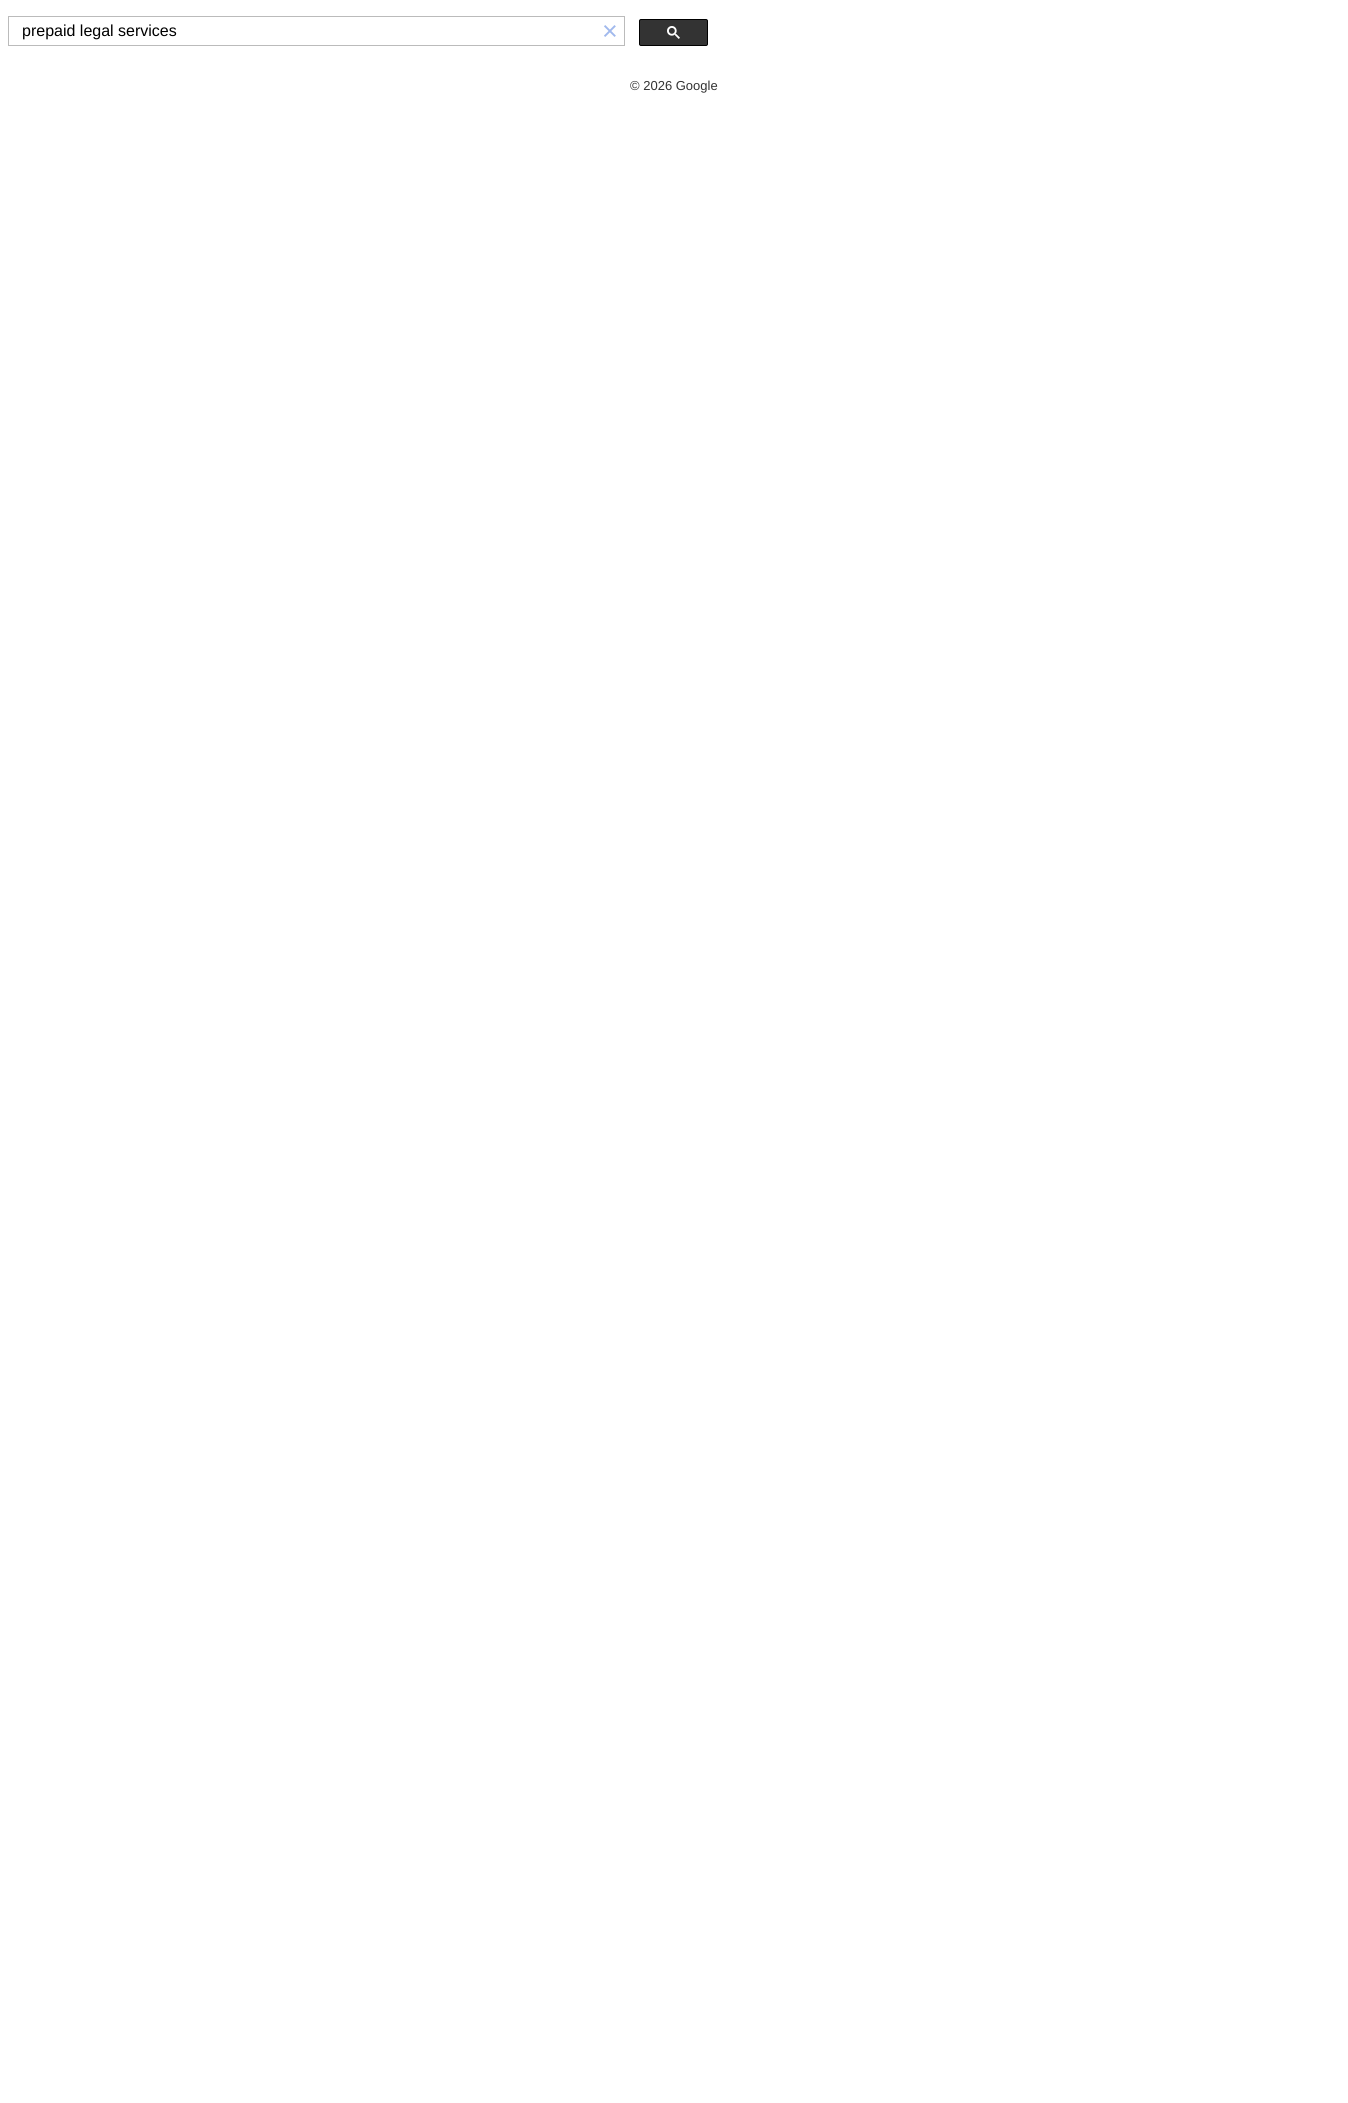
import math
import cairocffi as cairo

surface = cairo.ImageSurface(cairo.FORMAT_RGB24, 1348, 2103)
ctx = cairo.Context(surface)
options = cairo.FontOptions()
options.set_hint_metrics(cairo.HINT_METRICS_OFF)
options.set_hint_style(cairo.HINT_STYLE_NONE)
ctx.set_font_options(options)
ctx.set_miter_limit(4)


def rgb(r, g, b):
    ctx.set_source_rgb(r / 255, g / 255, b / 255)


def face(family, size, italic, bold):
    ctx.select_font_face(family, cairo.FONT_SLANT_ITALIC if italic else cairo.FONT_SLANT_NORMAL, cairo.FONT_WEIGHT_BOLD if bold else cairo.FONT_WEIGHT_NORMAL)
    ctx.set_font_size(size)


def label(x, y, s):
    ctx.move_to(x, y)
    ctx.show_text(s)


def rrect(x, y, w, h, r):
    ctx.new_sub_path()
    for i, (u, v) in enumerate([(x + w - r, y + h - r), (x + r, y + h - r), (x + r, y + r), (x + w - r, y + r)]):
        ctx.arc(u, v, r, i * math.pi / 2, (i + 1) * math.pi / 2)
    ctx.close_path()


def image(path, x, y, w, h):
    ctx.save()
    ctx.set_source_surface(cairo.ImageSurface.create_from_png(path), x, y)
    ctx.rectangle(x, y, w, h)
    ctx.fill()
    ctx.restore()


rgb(255, 255, 255)
ctx.paint()
ctx.rectangle(8.5, 16.5, 616, 29)
rgb(187, 187, 187)
ctx.set_line_width(1)
ctx.stroke()
face('Liberation Sans', 16, 0, 0)
rgb(0, 0, 0)
label(22, 36, 'prepaid legal services')
face('Liberation Sans', 27, 0, 0)
rgb(161, 185, 237)
label(602, 40, '×')
rgb(51, 51, 51)
rrect(639.5, 19.5, 68, 26, 1.5)
ctx.fill_preserve()
rgb(0, 0, 0)
ctx.stroke()
image('image0.png', 667, 26, 13, 13)
face('Liberation Sans', 13, 0, 0)
rgb(51, 51, 51)
label(630, 90, '© 2026 Google')
surface.write_to_png('render.png')
